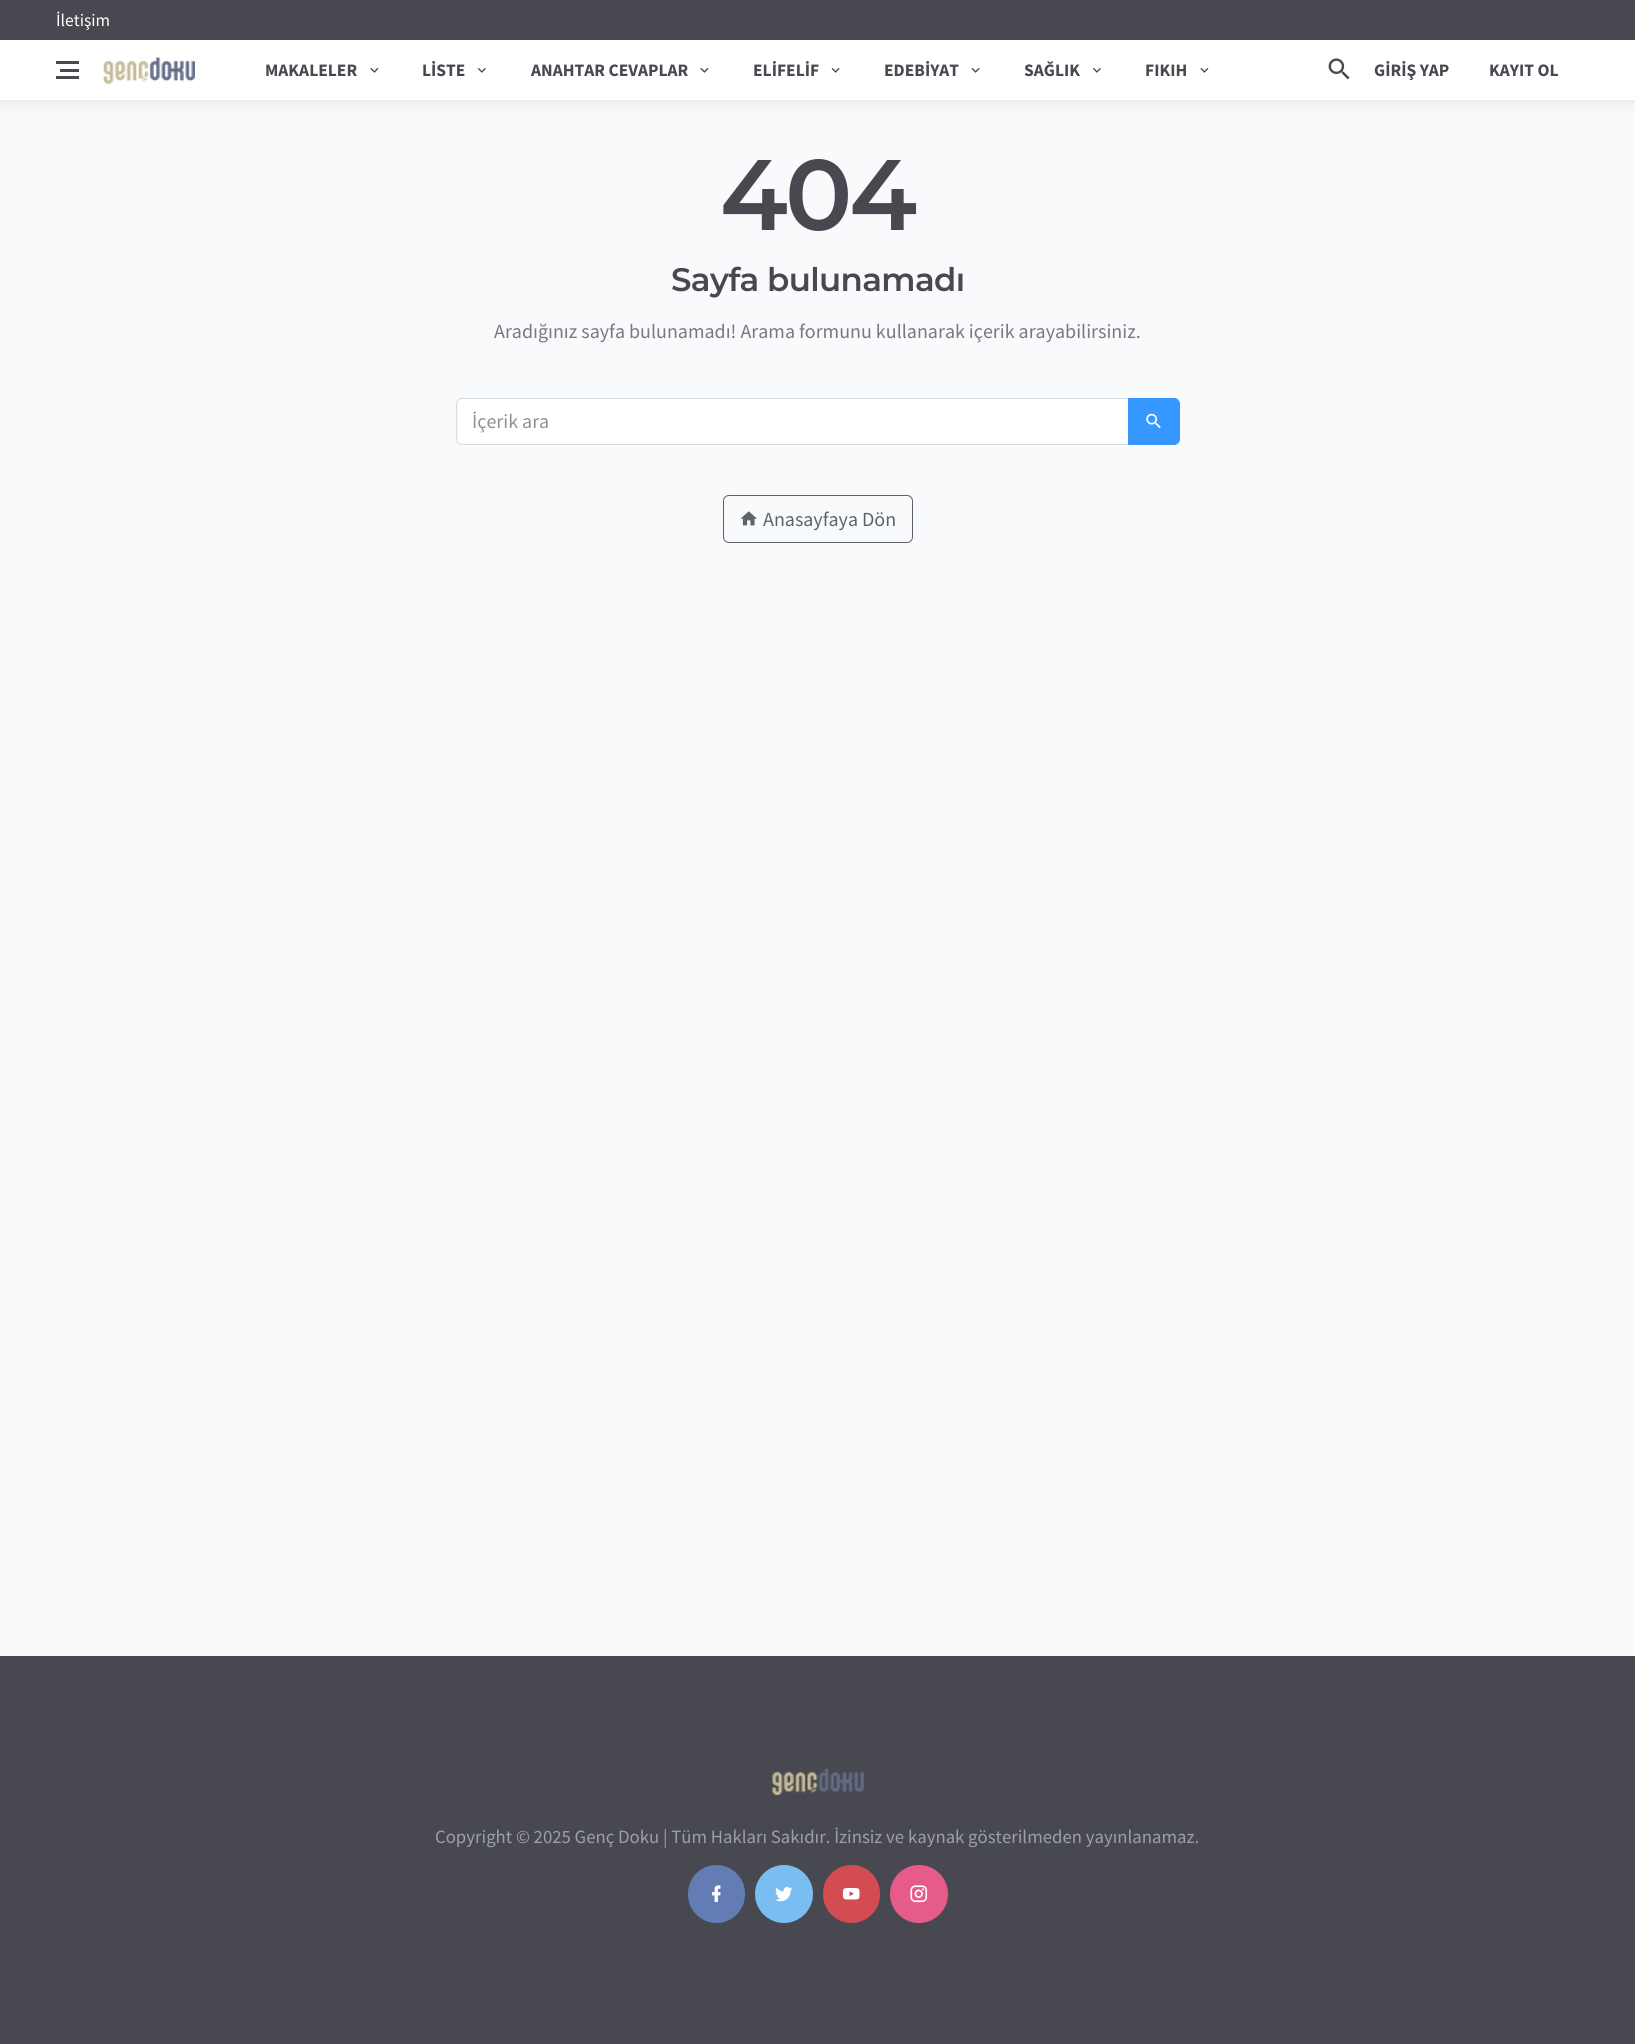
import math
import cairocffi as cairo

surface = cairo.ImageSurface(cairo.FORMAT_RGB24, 1635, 2044)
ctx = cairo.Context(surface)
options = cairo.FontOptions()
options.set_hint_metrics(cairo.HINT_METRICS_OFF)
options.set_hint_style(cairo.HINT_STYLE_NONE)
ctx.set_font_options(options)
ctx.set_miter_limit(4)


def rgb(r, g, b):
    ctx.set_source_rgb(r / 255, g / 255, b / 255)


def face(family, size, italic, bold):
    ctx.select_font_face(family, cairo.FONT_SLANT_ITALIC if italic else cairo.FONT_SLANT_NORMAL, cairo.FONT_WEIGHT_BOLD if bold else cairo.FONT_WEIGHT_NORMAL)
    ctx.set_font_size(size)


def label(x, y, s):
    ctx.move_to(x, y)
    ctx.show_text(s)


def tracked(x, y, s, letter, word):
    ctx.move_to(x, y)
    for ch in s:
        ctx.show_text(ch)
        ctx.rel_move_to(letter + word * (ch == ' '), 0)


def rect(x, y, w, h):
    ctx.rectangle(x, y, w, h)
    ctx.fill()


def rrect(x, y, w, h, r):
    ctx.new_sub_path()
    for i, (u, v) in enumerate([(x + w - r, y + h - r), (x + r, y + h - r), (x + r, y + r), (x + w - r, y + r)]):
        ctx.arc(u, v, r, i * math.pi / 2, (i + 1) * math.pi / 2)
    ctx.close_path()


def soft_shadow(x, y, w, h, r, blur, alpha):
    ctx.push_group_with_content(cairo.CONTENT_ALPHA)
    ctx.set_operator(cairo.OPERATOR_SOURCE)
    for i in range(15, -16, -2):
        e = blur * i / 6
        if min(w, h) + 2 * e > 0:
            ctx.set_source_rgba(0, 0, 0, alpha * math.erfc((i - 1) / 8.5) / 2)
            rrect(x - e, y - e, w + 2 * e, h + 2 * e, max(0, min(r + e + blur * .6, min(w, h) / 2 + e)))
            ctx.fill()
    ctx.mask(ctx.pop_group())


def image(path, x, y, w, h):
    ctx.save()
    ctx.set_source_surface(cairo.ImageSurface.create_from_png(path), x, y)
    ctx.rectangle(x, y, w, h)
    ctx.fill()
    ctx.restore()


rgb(249, 250, 251)
ctx.paint()
rgb(72, 73, 80)
rect(0, 0, 1635, 40)
face('Source Sans Pro', 17.5, 0, 0)
rgb(255, 255, 255)
label(56, 26, 'İletişim')
rgb(54, 54, 54)
soft_shadow(0, 43, 1635, 60, 0, 6, 0.1)
rgb(255, 255, 255)
rect(0, 40, 1635, 60)
rgb(72, 73, 80)
rect(60, 69, 19, 3)
rect(56, 61, 23, 3)
rect(56, 76, 23, 3)
image('image0.png', 103, 57, 92, 27)
face('Source Sans Pro', 17.5, 0, 1)
label(265, 76, 'MAKALELER')
image('image1.png', 370, 67, 9, 6)
label(422, 76, 'LİSTE')
image('image2.png', 477, 67, 9, 6)
label(531, 76, 'ANAHTAR CEVAPLAR')
image('image1.png', 700, 67, 9, 6)
label(753, 76, 'ELİFELİF')
image('image3.png', 831, 67, 9, 6)
label(884, 76, 'EDEBİYAT')
image('image3.png', 971, 67, 9, 6)
label(1024, 76, 'SAĞLIK')
image('image2.png', 1092, 67, 9, 6)
label(1145, 76, 'FIKIH')
image('image1.png', 1200, 67, 9, 6)
image('image4.png', 1328, 58, 22, 22)
label(1374, 76, 'GİRİŞ YAP')
label(1489, 76, 'KAYIT OL')
face('Montserrat SemiBold', 100, 0, 0)
tracked(720, 230, '404', -3, 0)
face('Montserrat SemiBold', 32.5, 0, 0)
tracked(671, 291, 'Sayfa bulunamadı', -0.6, 0)
face('Source Sans Pro', 20, 0, 0)
rgb(120, 121, 128)
label(494, 338, 'Aradığınız sayfa bulunamadı! Arama formunu kullanarak içerik arayabilirsiniz.')
rgb(255, 255, 255)
ctx.new_path()
ctx.move_to(463, 399)
ctx.line_to(1128, 399)
ctx.line_to(1128, 444)
ctx.line_to(463, 444)
ctx.curve_to(460, 444, 458, 442, 458, 439)
ctx.line_to(458, 404)
ctx.curve_to(458, 401, 460, 399, 463, 399)
ctx.close_path()
ctx.fill()
ctx.new_path()
ctx.move_to(462, 398.5)
ctx.line_to(1128.5, 398.5)
ctx.line_to(1128.5, 444.5)
ctx.line_to(462, 444.5)
ctx.curve_to(459, 444.5, 456.5, 442, 456.5, 439)
ctx.line_to(456.5, 404)
ctx.curve_to(456.5, 401, 459, 398.5, 462, 398.5)
ctx.close_path()
rgb(216, 221, 226)
ctx.set_line_width(1)
ctx.stroke()
rgb(139, 146, 152)
label(472, 428, 'İçerik ara')
rgb(54, 151, 255)
ctx.new_path()
ctx.move_to(1128.5, 398.5)
ctx.line_to(1174, 398.5)
ctx.curve_to(1177, 398.5, 1179.5, 401, 1179.5, 404)
ctx.line_to(1179.5, 439)
ctx.curve_to(1179.5, 442, 1177, 444.5, 1174, 444.5)
ctx.line_to(1128.5, 444.5)
ctx.close_path()
ctx.fill_preserve()
ctx.stroke()
image('image5.png', 1146, 413, 15, 16)
rrect(723.5, 495.5, 189, 47, 5.5)
rgb(95, 99, 104)
ctx.stroke()
image('image6.png', 740, 511, 17, 15)
label(763, 526, 'Anasayfaya Dön')
rgb(72, 73, 80)
rect(0, 1656, 1635, 388)
image('image7.png', 772, 1768, 92, 27)
face('Source Sans Pro', 18.75, 0, 0)
rgb(157, 159, 167)
label(435, 1843, 'Copyright © 2025 Genç Doku | Tüm Hakları Sakıdır. İzinsiz ve kaynak gösterilmeden yayınlanamaz.')
rgb(99, 124, 179)
rrect(688, 1865, 57, 58, 28.5)
ctx.fill()
image('image8.png', 712, 1885, 9, 18)
rgb(121, 189, 242)
ctx.arc(784, 1894, 29, 0, 2 * math.pi)
ctx.fill()
image('image9.png', 775, 1887, 18, 15)
rgb(210, 76, 81)
rrect(823, 1865, 57, 58, 28.5)
ctx.fill()
image('image10.png', 842, 1887, 18, 13)
rgb(231, 91, 139)
ctx.arc(919, 1894, 29, 0, 2 * math.pi)
ctx.fill()
image('image11.png', 910, 1885, 18, 18)
surface.write_to_png('render.png')
